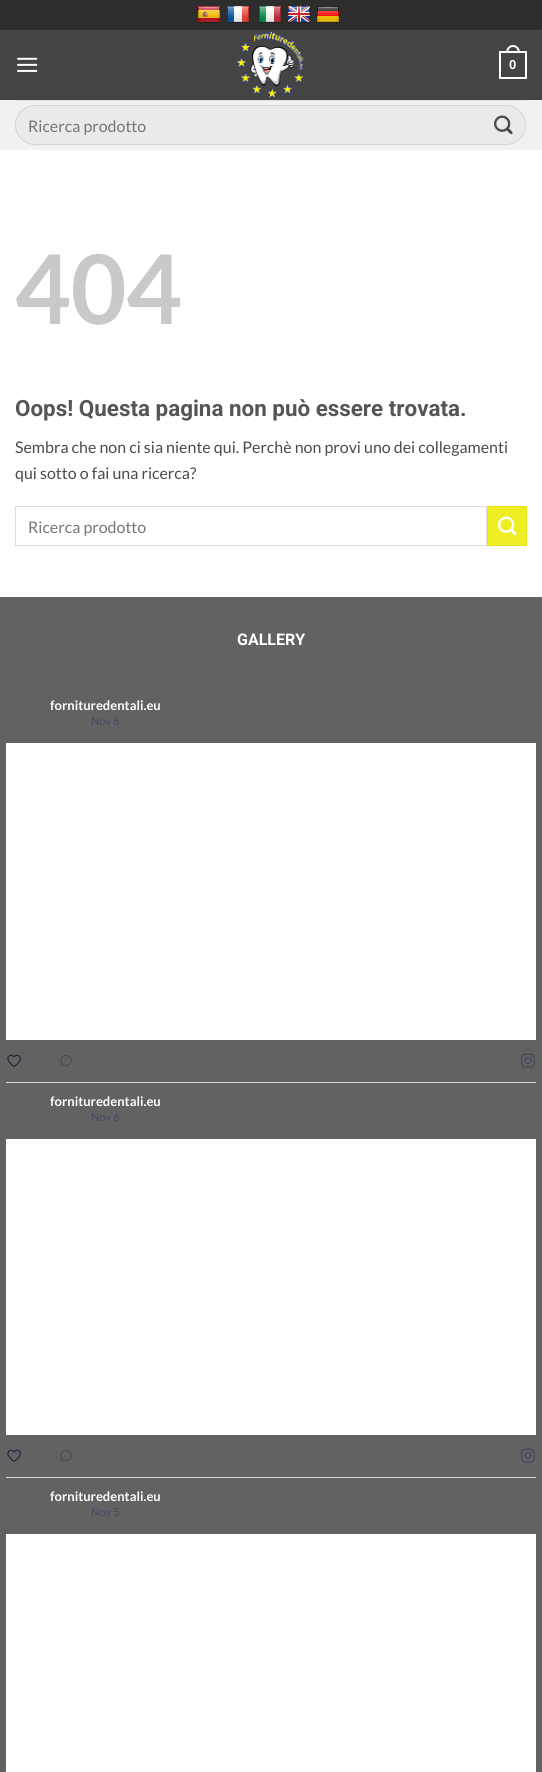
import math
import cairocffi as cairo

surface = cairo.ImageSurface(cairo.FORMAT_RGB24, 542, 1772)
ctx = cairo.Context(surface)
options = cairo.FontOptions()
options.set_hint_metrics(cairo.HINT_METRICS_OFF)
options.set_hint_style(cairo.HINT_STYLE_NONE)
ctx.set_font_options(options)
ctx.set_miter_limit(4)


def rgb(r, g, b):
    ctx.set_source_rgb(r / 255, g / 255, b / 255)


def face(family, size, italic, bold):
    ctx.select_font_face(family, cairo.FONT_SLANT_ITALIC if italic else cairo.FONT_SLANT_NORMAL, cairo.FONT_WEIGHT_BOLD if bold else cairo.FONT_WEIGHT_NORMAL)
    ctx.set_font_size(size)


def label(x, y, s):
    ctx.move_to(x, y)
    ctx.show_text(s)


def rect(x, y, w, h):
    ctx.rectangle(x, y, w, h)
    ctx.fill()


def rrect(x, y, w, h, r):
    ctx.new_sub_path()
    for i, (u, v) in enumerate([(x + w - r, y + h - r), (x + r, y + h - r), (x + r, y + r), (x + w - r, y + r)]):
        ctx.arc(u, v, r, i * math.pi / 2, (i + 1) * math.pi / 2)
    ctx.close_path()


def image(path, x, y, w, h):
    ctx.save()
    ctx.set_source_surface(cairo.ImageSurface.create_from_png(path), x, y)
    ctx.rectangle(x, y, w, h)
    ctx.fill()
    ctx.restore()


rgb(255, 255, 255)
ctx.paint()
rgb(45, 45, 45)
rect(0, 0, 542, 30)
image('image0.png', 198, 6, 22, 17)
image('image1.png', 227, 6, 22, 17)
image('image2.png', 259, 6, 22, 17)
image('image3.png', 288, 6, 22, 17)
image('image4.png', 317, 6, 22, 17)
rgb(68, 68, 68)
rect(0, 30, 542, 70)
image('image5.png', 17, 57, 21, 15)
image('image6.png', 236, 31, 69, 68)
ctx.rectangle(500, 52, 26, 26)
rgb(255, 255, 255)
ctx.stroke()
ctx.set_fill_rule(cairo.FILL_RULE_EVEN_ODD)
ctx.new_path()
ctx.move_to(513, 45)
ctx.curve_to(517.5, 45, 520, 49, 520, 53)
ctx.line_to(506, 53)
ctx.curve_to(506, 49, 508.5, 45, 513, 45)
ctx.close_path()
ctx.move_to(513, 47)
ctx.curve_to(516.5, 47, 518, 50, 518, 53)
ctx.line_to(508, 53)
ctx.curve_to(508, 50, 509.5, 47, 513, 47)
ctx.close_path()
ctx.fill()
face('Liberation Sans', 13, 0, 1)
label(509, 69, '0')
rgb(241, 241, 241)
rect(0, 100, 542, 50)
rgb(224, 224, 224)
rect(15, 100, 512, 1)
rgb(234, 234, 234)
rrect(15, 105, 511, 40, 20)
ctx.fill()
rrect(15.5, 105.5, 510, 39, 19.5)
ctx.set_source_rgba(0, 0, 0, 0.09)
ctx.set_line_width(1)
ctx.stroke()
face('Lato', 16, 0, 0)
rgb(117, 117, 117)
label(28, 132, 'Ricerca prodotto')
image('image7.png', 494, 115, 19, 20)
face('Lato', 96, 0, 1)
rgb(201, 201, 201)
label(15, 324, '404')
face('Roboto', 22.4, 0, 1)
rgb(85, 85, 85)
label(15, 416, 'Oops! Questa pagina non può essere trovata.')
face('Lato', 16, 0, 0)
rgb(74, 74, 74)
label(15, 453, 'Sembra che non ci sia niente qui. Perchè non provi uno dei collegamenti')
label(15, 479, 'qui sotto o fai una ricerca?')
ctx.rectangle(15.5, 506.5, 471, 39)
rgb(221, 221, 221)
ctx.stroke()
rgb(117, 117, 117)
label(28, 533, 'Ricerca prodotto')
rgb(238, 238, 34)
ctx.rectangle(487.5, 506.5, 39, 39)
ctx.fill_preserve()
rgb(226, 226, 32)
ctx.stroke()
image('image8.png', 498, 516, 19, 20)
rgb(98, 98, 98)
rect(0, 597, 542, 1175)
face('Roboto', 16, 0, 1)
rgb(255, 255, 255)
label(237, 645, 'GALLERY')
face('Lato', 13, 0, 1)
label(50, 710, 'fornituredentali.eu')
face('Lato', 11, 0, 0)
rgb(67, 73, 96)
label(91, 725, 'Nov 6')
rgb(255, 255, 255)
rect(6, 743, 530, 297)
image('image9.png', 7, 1054, 14, 13)
image('image10.png', 60, 1055, 12, 12)
image('image11.png', 521, 1053, 14, 15)
rgb(220, 221, 225)
rect(6, 1082, 530, 1)
face('Lato', 13, 0, 1)
rgb(255, 255, 255)
label(50, 1106, 'fornituredentali.eu')
face('Lato', 11, 0, 0)
rgb(67, 73, 96)
label(91, 1121, 'Nov 6')
rgb(255, 255, 255)
rect(6, 1139, 530, 296)
image('image9.png', 7, 1449, 14, 13)
image('image10.png', 60, 1450, 12, 12)
image('image11.png', 521, 1448, 14, 15)
rgb(220, 221, 225)
rect(6, 1477, 530, 1)
face('Lato', 13, 0, 1)
rgb(255, 255, 255)
label(50, 1501, 'fornituredentali.eu')
face('Lato', 11, 0, 0)
rgb(67, 73, 96)
label(91, 1516, 'Nov 5')
rgb(255, 255, 255)
rect(6, 1534, 530, 238)
surface.write_to_png('render.png')
